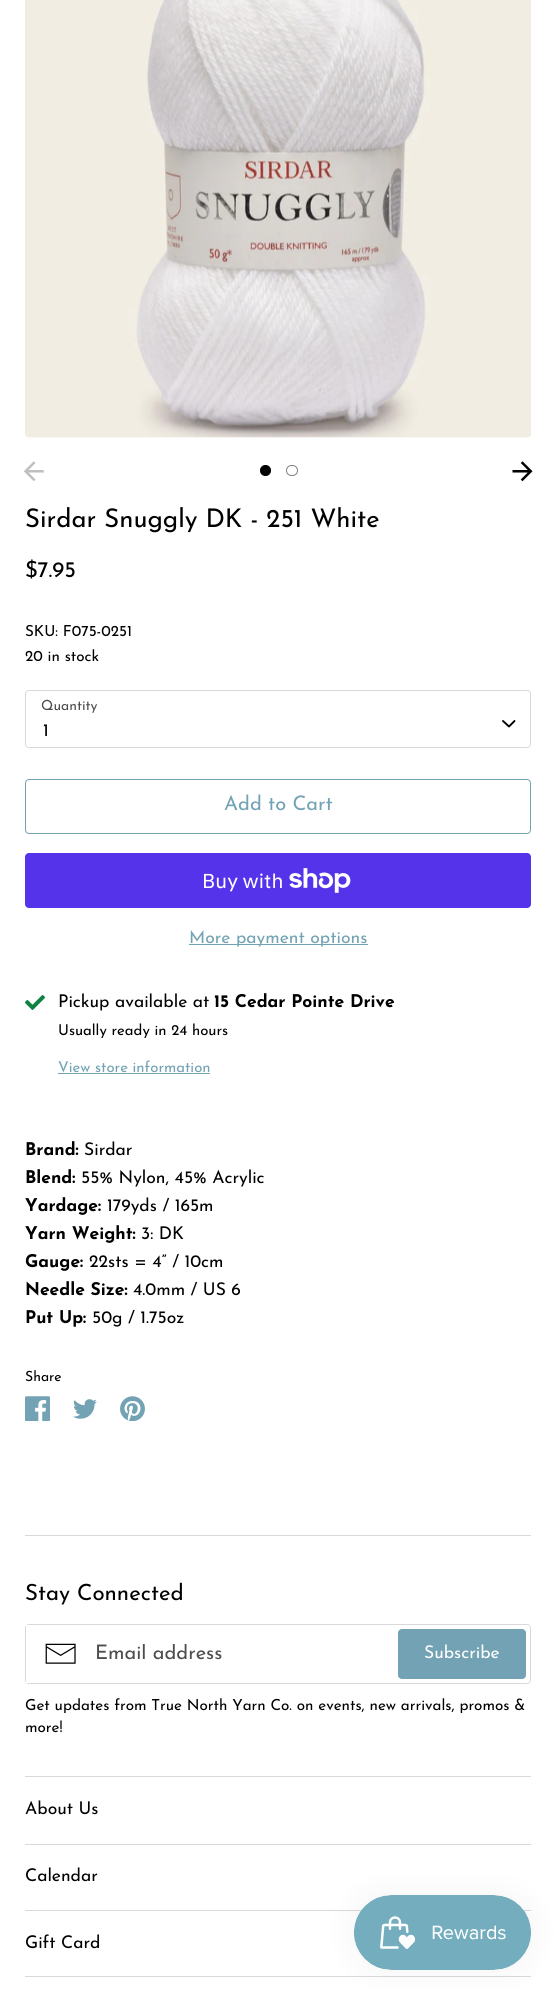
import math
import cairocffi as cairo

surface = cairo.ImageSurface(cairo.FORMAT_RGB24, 556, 1994)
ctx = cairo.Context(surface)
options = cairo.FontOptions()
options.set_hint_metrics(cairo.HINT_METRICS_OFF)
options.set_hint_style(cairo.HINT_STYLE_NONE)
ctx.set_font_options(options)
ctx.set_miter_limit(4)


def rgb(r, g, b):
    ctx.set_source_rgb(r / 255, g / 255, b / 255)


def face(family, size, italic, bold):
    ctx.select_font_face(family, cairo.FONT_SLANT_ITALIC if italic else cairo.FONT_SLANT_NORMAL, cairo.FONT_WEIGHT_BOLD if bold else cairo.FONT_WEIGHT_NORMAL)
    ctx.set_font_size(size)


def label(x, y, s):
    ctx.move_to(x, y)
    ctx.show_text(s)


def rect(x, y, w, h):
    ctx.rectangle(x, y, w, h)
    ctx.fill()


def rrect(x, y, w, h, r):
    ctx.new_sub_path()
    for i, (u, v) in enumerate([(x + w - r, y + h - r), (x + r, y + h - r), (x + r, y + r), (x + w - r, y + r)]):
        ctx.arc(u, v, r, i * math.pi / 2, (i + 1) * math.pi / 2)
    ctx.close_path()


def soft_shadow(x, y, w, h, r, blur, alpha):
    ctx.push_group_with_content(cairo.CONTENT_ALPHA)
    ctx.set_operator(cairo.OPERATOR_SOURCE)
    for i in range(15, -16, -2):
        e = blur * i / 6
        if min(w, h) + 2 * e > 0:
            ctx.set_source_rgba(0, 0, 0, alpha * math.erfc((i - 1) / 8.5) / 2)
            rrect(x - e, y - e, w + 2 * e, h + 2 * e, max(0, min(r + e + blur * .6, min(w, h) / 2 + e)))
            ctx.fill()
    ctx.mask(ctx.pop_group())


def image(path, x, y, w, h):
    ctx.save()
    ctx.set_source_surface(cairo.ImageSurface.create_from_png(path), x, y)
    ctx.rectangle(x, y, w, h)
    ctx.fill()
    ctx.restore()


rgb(255, 255, 255)
ctx.paint()
image('image0.png', 25, 0, 506, 438)
image('image1.png', 24, 461, 20, 20)
image('image2.png', 512, 461, 21, 21)
rgb(0, 0, 0)
ctx.arc(265.5, 470.5, 5, 0, 2 * math.pi)
ctx.fill_preserve()
ctx.set_line_width(1)
ctx.stroke()
rrect(286.5, 465.5, 11, 10, 5)
rgb(128, 128, 128)
ctx.stroke()
face('Josefin Sans', 25.7, 0, 0)
rgb(0, 0, 0)
label(25, 527, 'Sirdar Snuggly DK - 251 White')
face('Josefin Sans', 22.25, 0, 0)
label(25, 577, '$7.95')
face('Josefin Sans', 15.2, 0, 0)
label(25, 636, 'SKU: F075-0251')
label(25, 661, '20 in stock')
face('Josefin Sans', 14, 0, 0)
rgb(77, 77, 77)
label(41, 710, 'Quantity')
rrect(25.5, 690.5, 505, 57, 3.5)
rgb(217, 217, 217)
ctx.stroke()
face('Josefin Sans', 17.5, 0, 0)
rgb(0, 0, 0)
label(43, 736, '1')
ctx.new_path()
ctx.move_to(503, 721)
ctx.line_to(509, 726.5)
ctx.line_to(514.5, 721)
ctx.set_line_width(1.9)
ctx.set_line_cap(cairo.LINE_CAP_ROUND)
ctx.set_line_join(cairo.LINE_JOIN_ROUND)
ctx.stroke()
rrect(25.5, 779.5, 505, 54, 3.5)
rgb(114, 162, 179)
ctx.set_line_width(1)
ctx.set_line_cap(cairo.LINE_CAP_BUTT)
ctx.set_line_join(cairo.LINE_JOIN_MITER)
ctx.stroke()
face('Josefin Sans', 20, 0, 0)
label(224, 810, 'Add to Cart')
rgb(84, 51, 235)
rrect(25, 853, 506, 55, 4)
ctx.fill()
face('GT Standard', 20, 0, 0)
rgb(255, 255, 255)
label(202, 888, 'Buy with')
image('image3.png', 289, 868, 62, 25)
rgb(114, 162, 179)
rect(189, 944, 179, 1)
face('Josefin Sans', 17.5, 0, 0)
label(189, 943, 'More payment options')
image('image4.png', 25, 995, 20, 15)
rgb(0, 0, 0)
label(58, 1007, 'Pickup available at')
face('Josefin Sans', 17.5, 0, 1)
label(214, 1007, '15 Cedar Pointe Drive')
face('Josefin Sans', 14.9, 0, 0)
label(58, 1035, 'Usually ready in 24 hours')
rgb(114, 162, 179)
label(58, 1072, 'View store information')
rect(58, 1073, 152, 1)
face('Josefin Sans', 17.5, 0, 1)
rgb(0, 0, 0)
label(25, 1155, 'Brand:')
face('Josefin Sans', 17.5, 0, 0)
label(84, 1155, 'Sirdar')
face('Josefin Sans', 17.5, 0, 1)
label(25, 1183, 'Blend:')
face('Josefin Sans', 17.5, 0, 0)
label(81, 1183, '55% Nylon, 45% Acrylic')
face('Josefin Sans', 17.5, 0, 1)
label(25, 1211, 'Yardage:')
face('Josefin Sans', 17.5, 0, 0)
label(107, 1211, '179yds / 165m')
face('Josefin Sans', 17.5, 0, 1)
label(25, 1239, 'Yarn Weight:')
face('Josefin Sans', 17.5, 0, 0)
label(141, 1239, '3: DK')
face('Josefin Sans', 17.5, 0, 1)
label(25, 1267, 'Gauge:')
face('Josefin Sans', 17.5, 0, 0)
label(89, 1267, '22sts = 4” / 10cm')
face('Josefin Sans', 17.5, 0, 1)
label(25, 1295, 'Needle Size:')
face('Josefin Sans', 17.5, 0, 0)
label(133, 1295, '4.0mm / US 6')
face('Josefin Sans', 17.5, 0, 1)
label(25, 1323, 'Put Up:')
face('Josefin Sans', 17.5, 0, 0)
label(92, 1323, '50g / 1.75oz')
face('Josefin Sans', 14, 0, 0)
label(25, 1381, 'Share')
image('image5.png', 25, 1396, 25, 25)
image('image6.png', 73, 1399, 24, 20)
image('image7.png', 120, 1396, 25, 25)
rgb(217, 217, 217)
rect(25, 1535, 506, 1)
face('Josefin Sans', 22.25, 0, 0)
rgb(0, 0, 0)
label(25, 1600, 'Stay Connected')
rrect(25.5, 1624.5, 505, 59, 3.5)
rgb(217, 217, 217)
ctx.stroke()
image('image8.png', 45, 1643, 31, 21)
rgb(255, 255, 255)
rect(26, 1625, 3, 58)
ctx.save()
ctx.rectangle(95, 1644, 284, 20)
ctx.clip()
face('Josefin Sans', 20, 0, 0)
rgb(77, 77, 77)
label(95, 1659, 'Email address')
ctx.restore()
rgb(114, 162, 179)
rrect(398.5, 1629.5, 127, 49, 3.5)
ctx.fill_preserve()
ctx.stroke()
face('Josefin Sans', 17.5, 0, 0)
rgb(255, 255, 255)
label(424, 1658, 'Subscribe')
face('Josefin Sans', 15.2, 0, 0)
rgb(0, 0, 0)
label(25, 1710, 'Get updates from True North Yarn Co. on events, new arrivals, promos &')
label(25, 1732, 'more!')
rgb(217, 217, 217)
rect(25, 1776, 506, 1)
rect(25, 1844, 506, 1)
face('Josefin Sans', 17.5, 0, 0)
rgb(0, 0, 0)
label(25, 1814, 'About Us')
rgb(217, 217, 217)
rect(25, 1910, 506, 1)
rgb(0, 0, 0)
label(25, 1881, 'Calendar')
rgb(217, 217, 217)
rect(25, 1976, 506, 1)
rgb(0, 0, 0)
label(25, 1948, 'Gift Card')
rgb(0, 0, 0)
soft_shadow(354, 1895, 177, 75, 37.5, 15.5, 0.05)
image('image9.png', 354, 1895, 177, 75)
surface.write_to_png('render.png')
